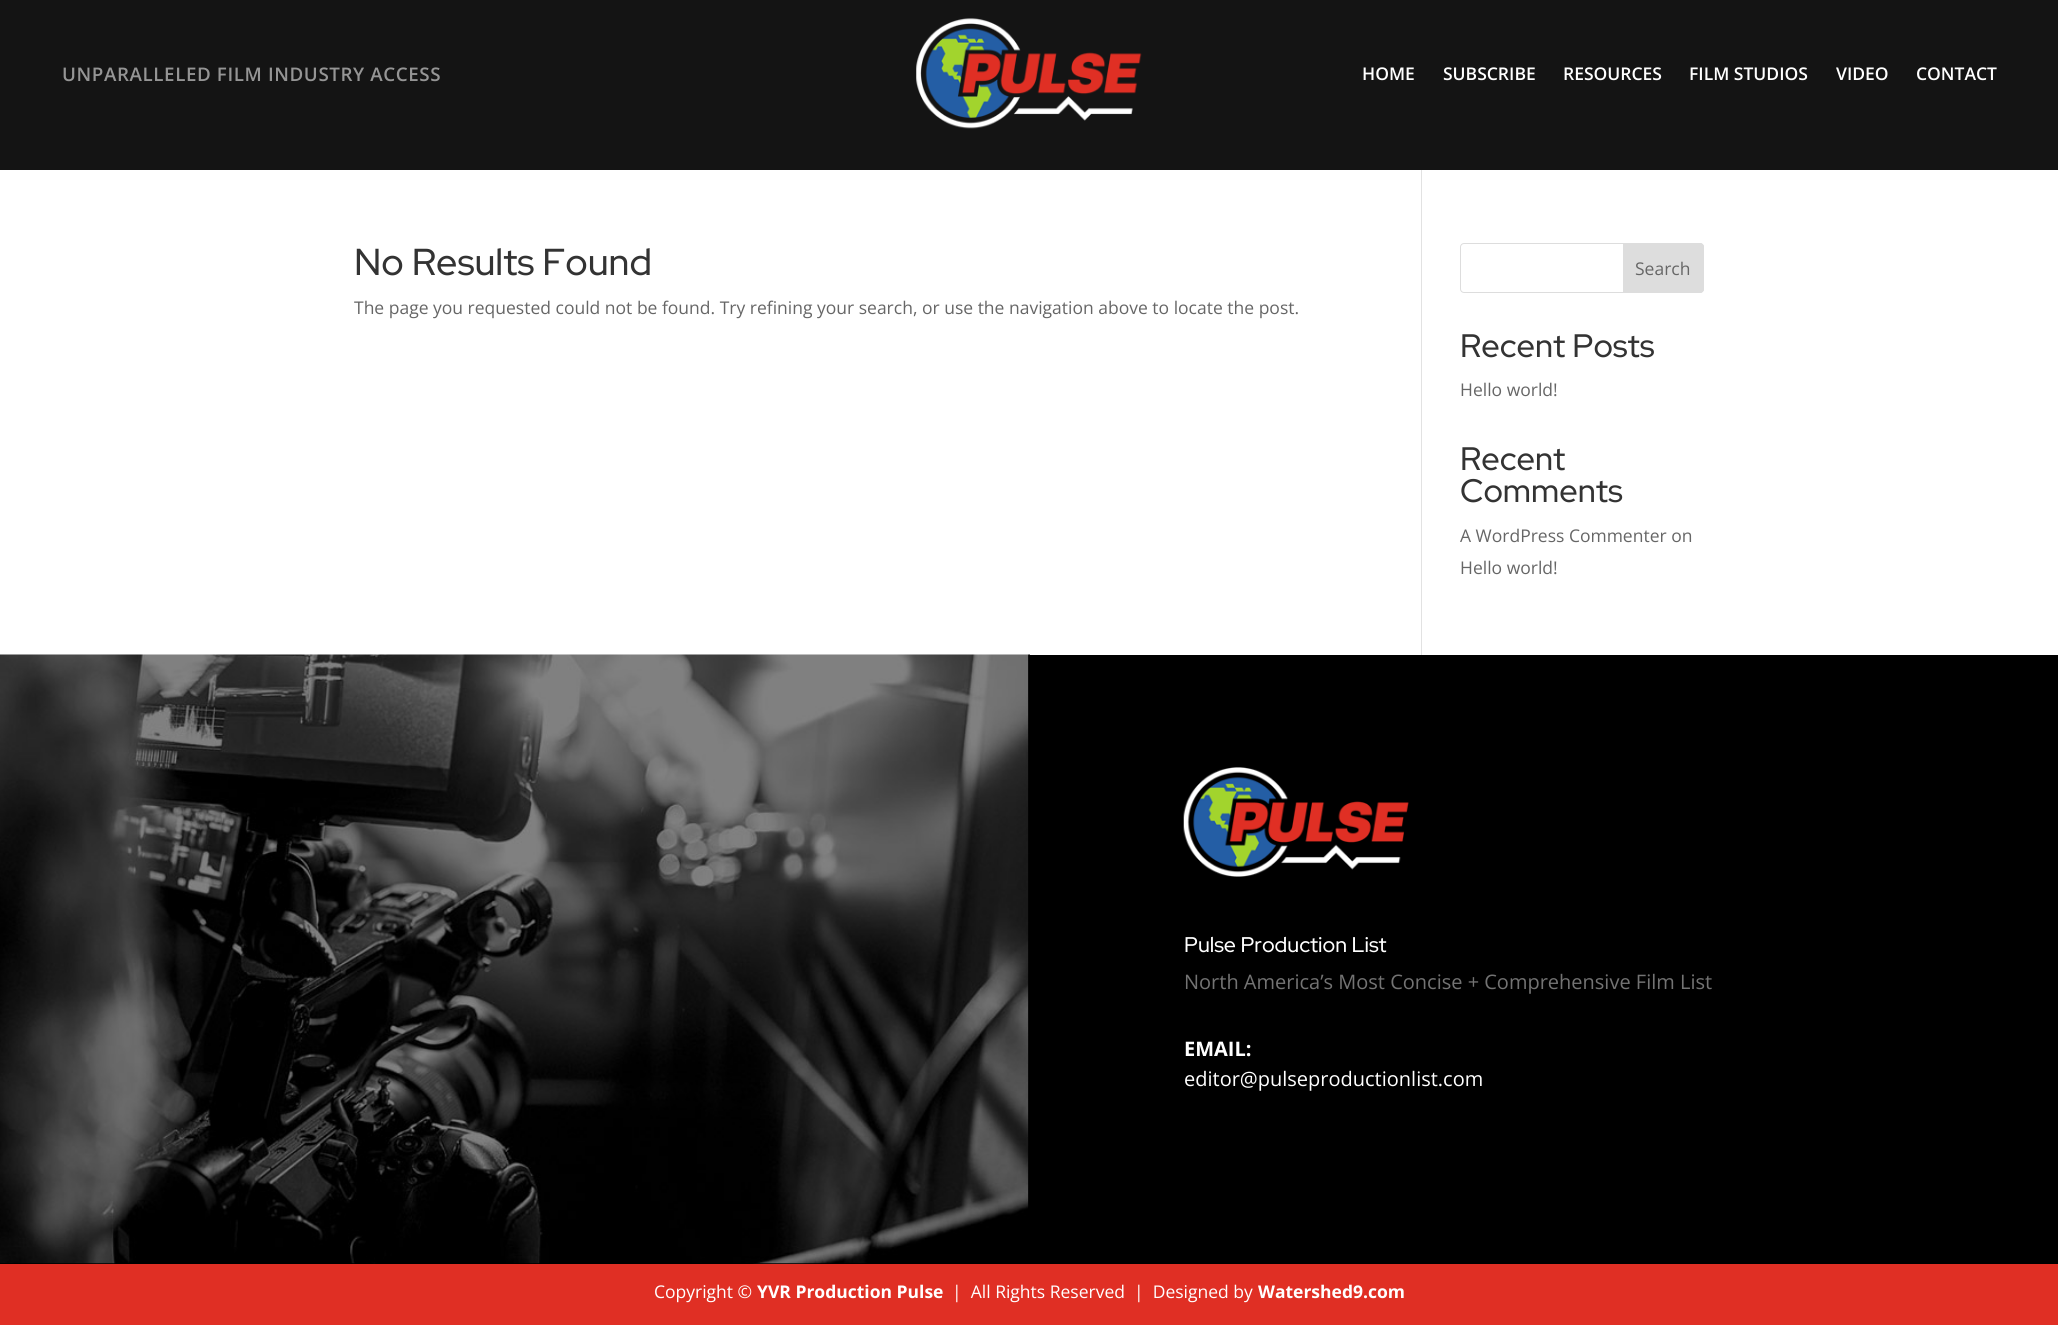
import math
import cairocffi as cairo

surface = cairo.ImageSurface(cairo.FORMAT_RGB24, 2058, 1325)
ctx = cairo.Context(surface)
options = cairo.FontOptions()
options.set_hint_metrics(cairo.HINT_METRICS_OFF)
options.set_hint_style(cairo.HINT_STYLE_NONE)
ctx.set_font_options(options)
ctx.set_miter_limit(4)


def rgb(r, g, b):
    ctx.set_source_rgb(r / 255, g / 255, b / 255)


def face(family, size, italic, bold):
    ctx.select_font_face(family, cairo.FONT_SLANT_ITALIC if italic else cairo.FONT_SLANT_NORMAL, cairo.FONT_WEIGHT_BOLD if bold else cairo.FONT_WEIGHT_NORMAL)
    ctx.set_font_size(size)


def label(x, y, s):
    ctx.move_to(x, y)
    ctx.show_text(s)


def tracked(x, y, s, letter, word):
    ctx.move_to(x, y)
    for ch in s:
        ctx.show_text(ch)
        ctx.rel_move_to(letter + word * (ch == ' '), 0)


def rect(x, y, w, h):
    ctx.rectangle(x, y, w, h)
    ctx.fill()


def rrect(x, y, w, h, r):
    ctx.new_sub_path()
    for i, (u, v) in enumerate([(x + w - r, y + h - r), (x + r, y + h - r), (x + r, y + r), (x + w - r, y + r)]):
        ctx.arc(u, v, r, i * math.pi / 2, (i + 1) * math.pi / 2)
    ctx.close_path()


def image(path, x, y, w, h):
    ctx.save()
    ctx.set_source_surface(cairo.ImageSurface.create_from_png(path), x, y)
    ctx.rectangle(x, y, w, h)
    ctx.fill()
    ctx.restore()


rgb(255, 255, 255)
ctx.paint()
rgb(20, 20, 20)
rect(0, 0, 2058, 170)
face('Open Sans SemiBold', 18.75, 0, 0)
rgb(149, 149, 149)
tracked(62, 81, 'UNPARALLELED FILM INDUSTRY ACCESS', 0.6, 0)
image('image0.png', 916, 18, 226, 111)
face('Open Sans SemiBold', 17.5, 0, 0)
rgb(255, 255, 255)
label(1362, 80, 'HOME')
label(1443, 80, 'SUBSCRIBE')
label(1563, 80, 'RESOURCES')
label(1689, 80, 'FILM STUDIOS')
label(1836, 80, 'VIDEO')
label(1916, 80, 'CONTACT')
rgb(226, 226, 226)
rect(1421, 170, 1, 485)
face('Red Hat Display Medium', 37.5, 0, 0)
rgb(51, 51, 51)
label(354, 275, 'No Results Found')
face('Open Sans', 17.5, 0, 0)
rgb(102, 102, 102)
label(354, 314, 'The page you requested could not be found. Try refining your search, or use the navigation above to locate the post.')
rrect(1460.5, 243.5, 243, 49, 3.5)
rgb(221, 221, 221)
ctx.set_line_width(1)
ctx.stroke()
ctx.new_path()
ctx.move_to(1623.5, 243.5)
ctx.line_to(1700, 243.5)
ctx.curve_to(1702, 243.5, 1703.5, 245, 1703.5, 247)
ctx.line_to(1703.5, 289)
ctx.curve_to(1703.5, 291, 1702, 292.5, 1700, 292.5)
ctx.line_to(1623.5, 292.5)
ctx.close_path()
ctx.fill_preserve()
ctx.stroke()
rgb(102, 102, 102)
label(1635, 275, 'Search')
face('Red Hat Display Medium', 32.5, 0, 0)
rgb(51, 51, 51)
label(1460, 357, 'Recent Posts')
face('Open Sans', 17.5, 0, 0)
rgb(102, 102, 102)
label(1460, 396, 'Hello world!')
face('Red Hat Display Medium', 32.5, 0, 0)
rgb(51, 51, 51)
label(1460, 470, 'Recent')
label(1460, 502, 'Comments')
face('Open Sans', 17.5, 0, 0)
rgb(102, 102, 102)
label(1460, 542, 'A WordPress Commenter on')
label(1460, 574, 'Hello world!')
rgb(0, 0, 0)
rect(0, 655, 2058, 609)
image('image1.png', 0, 654, 1030, 610)
image('image2.png', 1183, 767, 226, 110)
face('Red Hat Display Medium', 21.25, 0, 0)
rgb(255, 255, 255)
label(1184, 952, 'Pulse Production List')
face('Open Sans', 20, 0, 0)
rgb(115, 115, 115)
label(1184, 989, 'North America’s Most Concise + Comprehensive Film List')
face('Open Sans', 20, 0, 1)
rgb(255, 255, 255)
label(1184, 1056, 'EMAIL:')
face('Open Sans', 20, 0, 0)
label(1184, 1086, 'editor@pulseproductionlist.com')
rgb(224, 47, 36)
rect(0, 1264, 2058, 61)
face('Open Sans', 17.5, 0, 0)
rgb(255, 255, 255)
label(654, 1298, 'Copyright ©')
face('Open Sans', 17.5, 0, 1)
label(757, 1298, 'YVR Production Pulse')
face('Open Sans', 17.5, 0, 0)
label(952, 1298, '|  All Rights Reserved  |  Designed by')
face('Open Sans', 17.5, 0, 1)
label(1258, 1298, 'Watershed9.com')
surface.write_to_png('render.png')
